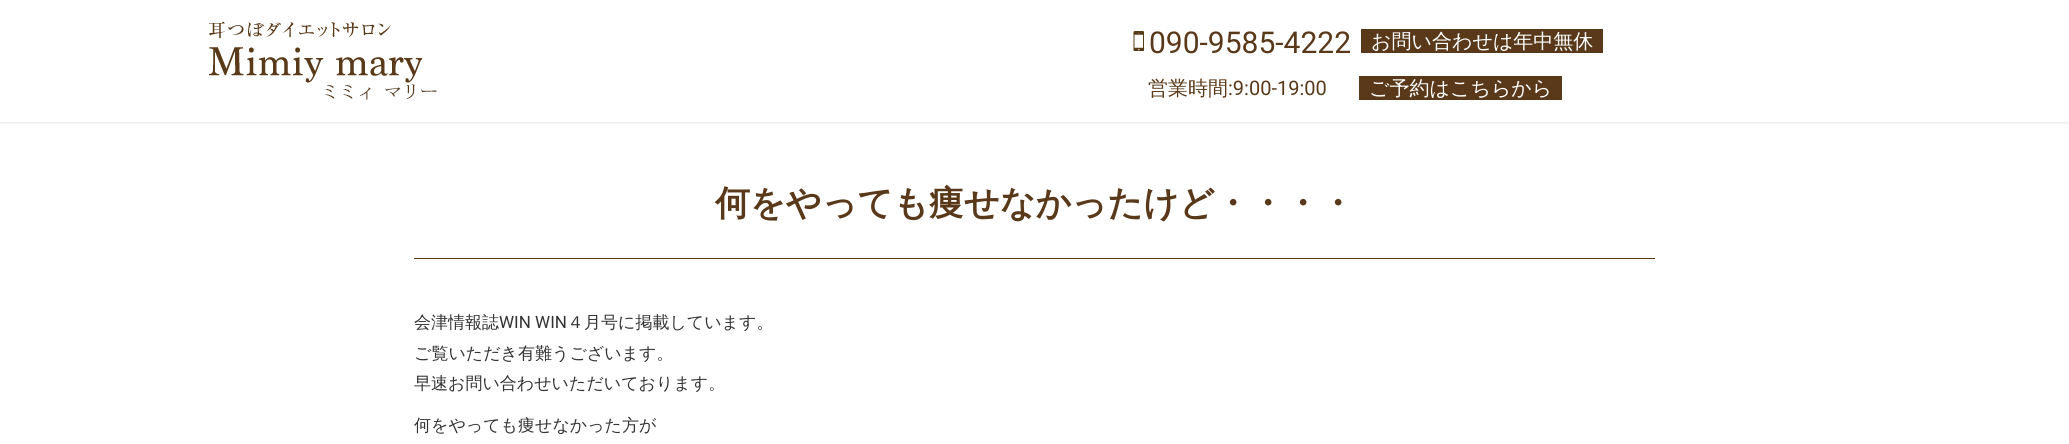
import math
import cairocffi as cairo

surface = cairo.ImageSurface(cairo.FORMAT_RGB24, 2069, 444)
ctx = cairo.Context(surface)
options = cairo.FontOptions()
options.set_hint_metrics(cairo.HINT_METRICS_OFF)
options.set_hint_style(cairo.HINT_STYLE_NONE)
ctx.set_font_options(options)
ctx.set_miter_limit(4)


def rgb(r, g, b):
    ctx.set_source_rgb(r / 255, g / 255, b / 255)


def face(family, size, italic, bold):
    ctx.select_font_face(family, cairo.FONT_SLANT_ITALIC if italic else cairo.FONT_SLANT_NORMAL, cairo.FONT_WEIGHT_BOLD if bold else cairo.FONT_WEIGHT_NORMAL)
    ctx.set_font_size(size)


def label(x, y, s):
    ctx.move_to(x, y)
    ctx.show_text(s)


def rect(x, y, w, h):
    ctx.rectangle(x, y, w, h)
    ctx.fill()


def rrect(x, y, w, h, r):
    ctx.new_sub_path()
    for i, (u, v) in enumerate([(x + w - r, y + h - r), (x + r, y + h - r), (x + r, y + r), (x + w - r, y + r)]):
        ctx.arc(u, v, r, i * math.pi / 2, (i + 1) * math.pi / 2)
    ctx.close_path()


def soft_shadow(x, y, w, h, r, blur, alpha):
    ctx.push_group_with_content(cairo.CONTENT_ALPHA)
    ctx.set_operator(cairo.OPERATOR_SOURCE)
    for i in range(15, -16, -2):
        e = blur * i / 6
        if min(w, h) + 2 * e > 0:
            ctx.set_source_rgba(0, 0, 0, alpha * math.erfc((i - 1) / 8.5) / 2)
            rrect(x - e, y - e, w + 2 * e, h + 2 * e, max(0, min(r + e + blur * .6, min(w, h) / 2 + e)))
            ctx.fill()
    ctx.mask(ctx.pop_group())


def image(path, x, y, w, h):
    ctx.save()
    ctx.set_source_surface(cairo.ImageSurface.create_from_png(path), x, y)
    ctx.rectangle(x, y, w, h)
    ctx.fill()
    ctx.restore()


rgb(255, 255, 255)
ctx.paint()
ctx.save()
ctx.rectangle(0, 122, 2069, 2)
ctx.clip()
rgb(0, 0, 0)
soft_shadow(0, 0, 2069, 122, 0, 1.5, 0.2)
ctx.restore()
image('image0.png', 208, 21, 229, 79)
image('image1.png', 1133, 31, 11, 20)
face('Roboto', 30, 0, 0)
rgb(89, 57, 26)
label(1149, 53, '090-9585-4222')
rect(1361, 29, 242, 24)
face('WenQuanYi Zen Hei Medium', 20, 0, 0)
rgb(255, 255, 255)
label(1371, 48, 'お問い合わせは年中無休')
rgb(89, 57, 26)
label(1148, 95, '営業時間')
face('Roboto', 20, 0, 0)
label(1228, 95, ':9:00-19:00')
rect(1359, 76, 203, 24)
face('WenQuanYi Zen Hei Medium', 20, 0, 0)
rgb(255, 255, 255)
label(1369, 95, 'ご予約はこちらから')
face('WenQuanYi Zen Hei', 35, 0, 1)
rgb(89, 57, 26)
label(715, 215, '何をやっても痩せなかったけど・・・・')
rect(414, 258, 1241, 1)
face('WenQuanYi Zen Hei Medium', 17, 0, 0)
rgb(51, 51, 51)
label(414, 328, '会津情報誌')
face('Roboto', 17, 0, 0)
label(499, 328, 'WIN WIN')
face('WenQuanYi Zen Hei Medium', 17, 0, 0)
label(567, 328, '４月号に掲載しています。')
label(414, 359, 'ご覧いただき有難うございます。')
label(414, 389, '早速お問い合わせいただいております。')
label(414, 431, '何をやっても痩せなかった方が')
surface.write_to_png('render.png')
